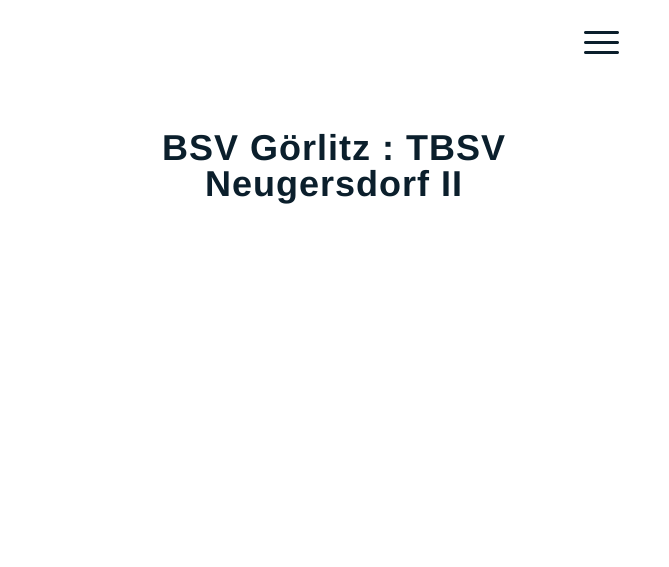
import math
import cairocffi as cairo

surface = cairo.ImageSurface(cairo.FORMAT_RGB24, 669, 567)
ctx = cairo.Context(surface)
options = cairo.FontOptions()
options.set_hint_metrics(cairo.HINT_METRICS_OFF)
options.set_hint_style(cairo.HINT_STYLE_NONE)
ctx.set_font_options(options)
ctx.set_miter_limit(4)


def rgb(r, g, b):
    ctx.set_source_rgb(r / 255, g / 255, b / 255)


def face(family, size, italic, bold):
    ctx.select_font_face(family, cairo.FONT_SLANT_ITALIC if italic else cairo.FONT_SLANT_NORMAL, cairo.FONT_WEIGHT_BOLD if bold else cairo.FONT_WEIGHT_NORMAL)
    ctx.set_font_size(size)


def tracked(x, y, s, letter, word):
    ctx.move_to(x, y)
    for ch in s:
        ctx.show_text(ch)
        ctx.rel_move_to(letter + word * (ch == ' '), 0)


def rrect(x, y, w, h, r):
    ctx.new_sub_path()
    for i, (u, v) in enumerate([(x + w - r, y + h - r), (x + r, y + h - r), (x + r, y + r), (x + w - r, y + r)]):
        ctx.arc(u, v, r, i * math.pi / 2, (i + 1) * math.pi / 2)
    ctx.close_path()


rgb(255, 255, 255)
ctx.paint()
rgb(11, 31, 44)
rrect(584, 41, 35, 3, 1.5)
ctx.fill()
rrect(584, 31, 35, 3, 1.5)
ctx.fill()
rrect(584, 51, 35, 3, 1.5)
ctx.fill()
face('Liberation Sans', 36, 0, 1)
tracked(162, 160, 'BSV Görlitz : TBSV', 1, 0)
tracked(205, 196, 'Neugersdorf II', 1, 0)
surface.write_to_png('render.png')
